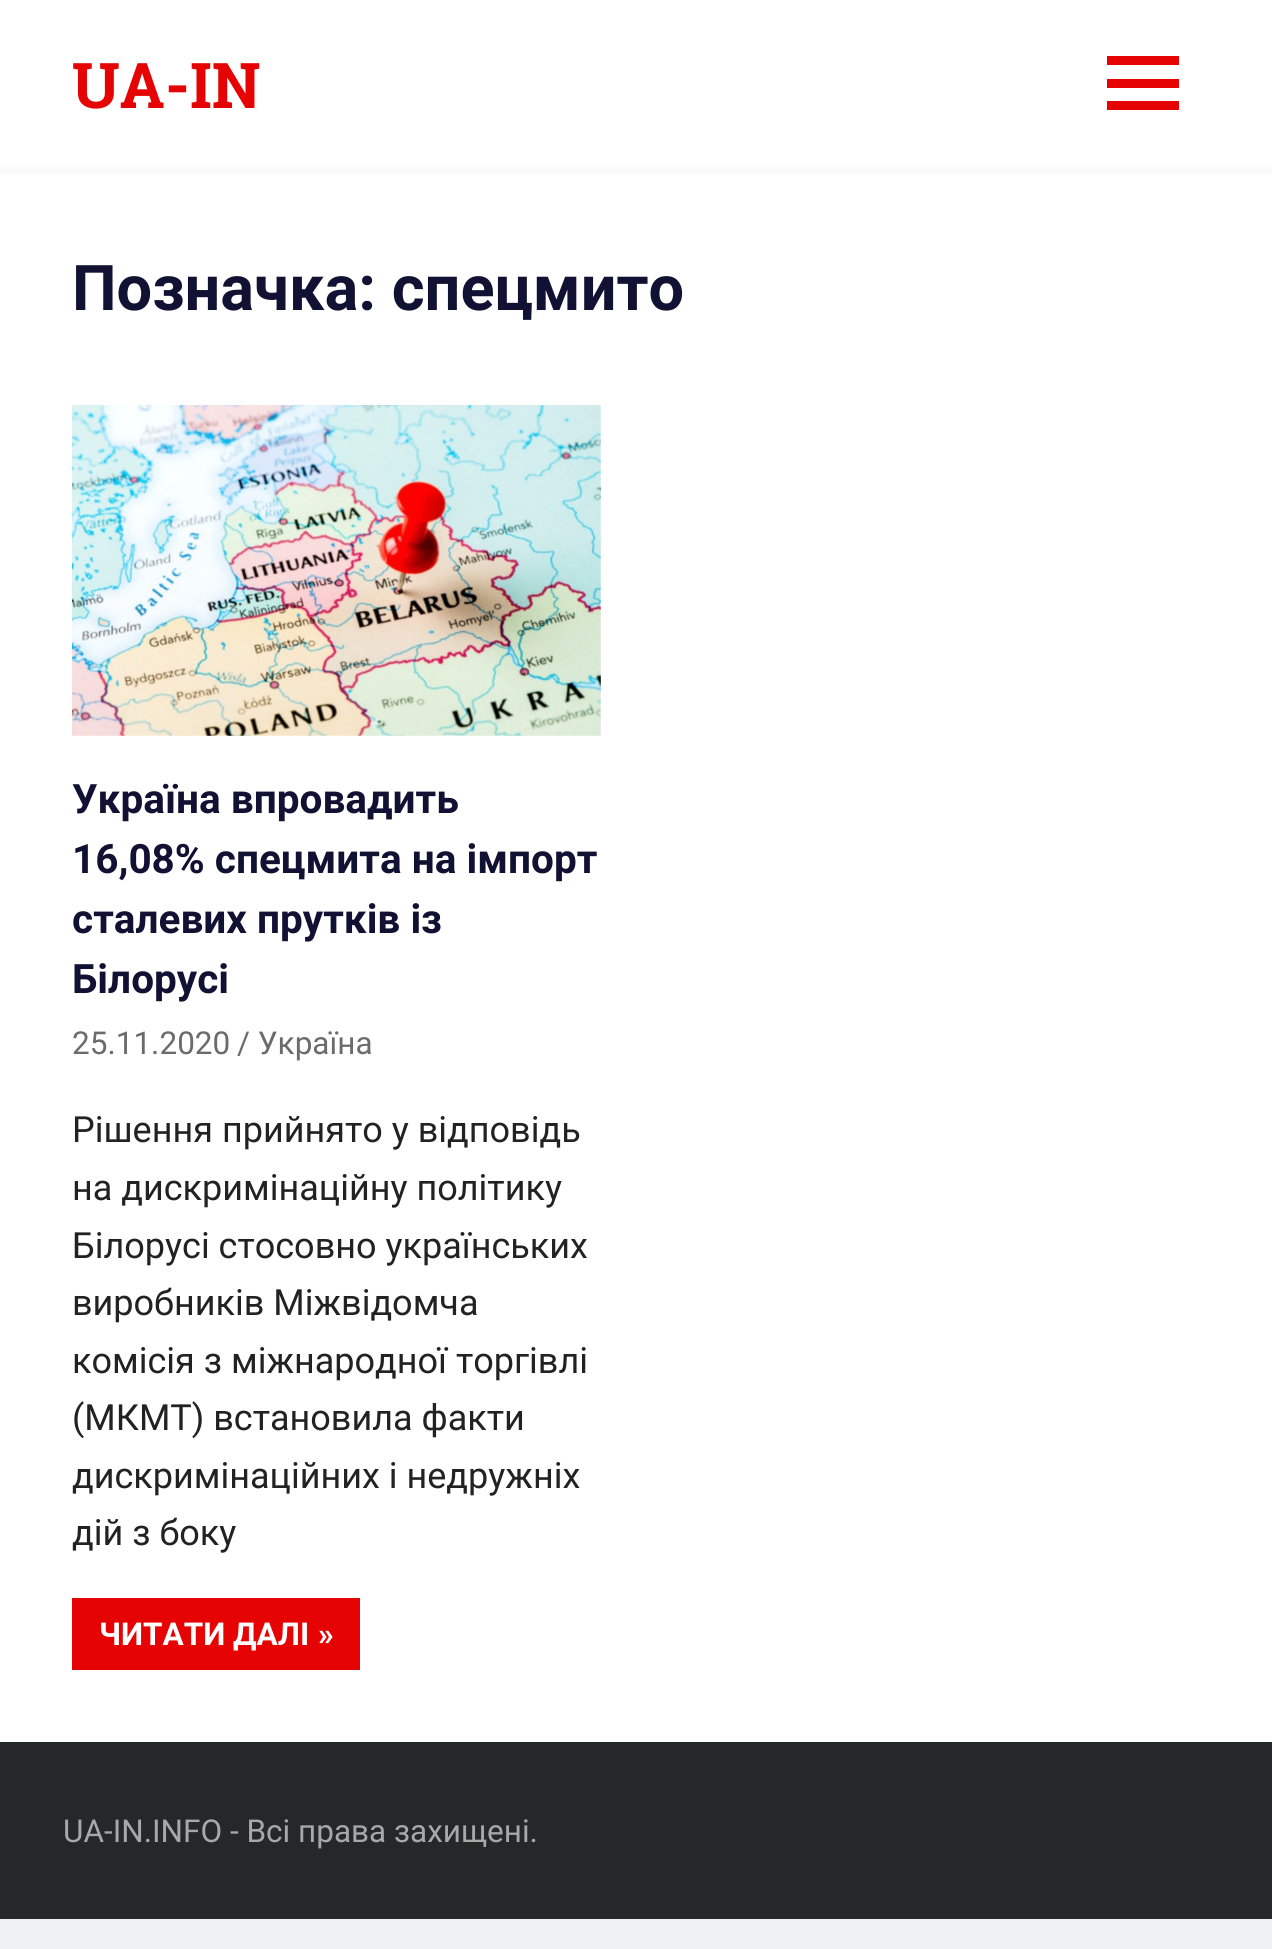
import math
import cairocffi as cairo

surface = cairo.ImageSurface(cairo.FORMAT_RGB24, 1272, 1949)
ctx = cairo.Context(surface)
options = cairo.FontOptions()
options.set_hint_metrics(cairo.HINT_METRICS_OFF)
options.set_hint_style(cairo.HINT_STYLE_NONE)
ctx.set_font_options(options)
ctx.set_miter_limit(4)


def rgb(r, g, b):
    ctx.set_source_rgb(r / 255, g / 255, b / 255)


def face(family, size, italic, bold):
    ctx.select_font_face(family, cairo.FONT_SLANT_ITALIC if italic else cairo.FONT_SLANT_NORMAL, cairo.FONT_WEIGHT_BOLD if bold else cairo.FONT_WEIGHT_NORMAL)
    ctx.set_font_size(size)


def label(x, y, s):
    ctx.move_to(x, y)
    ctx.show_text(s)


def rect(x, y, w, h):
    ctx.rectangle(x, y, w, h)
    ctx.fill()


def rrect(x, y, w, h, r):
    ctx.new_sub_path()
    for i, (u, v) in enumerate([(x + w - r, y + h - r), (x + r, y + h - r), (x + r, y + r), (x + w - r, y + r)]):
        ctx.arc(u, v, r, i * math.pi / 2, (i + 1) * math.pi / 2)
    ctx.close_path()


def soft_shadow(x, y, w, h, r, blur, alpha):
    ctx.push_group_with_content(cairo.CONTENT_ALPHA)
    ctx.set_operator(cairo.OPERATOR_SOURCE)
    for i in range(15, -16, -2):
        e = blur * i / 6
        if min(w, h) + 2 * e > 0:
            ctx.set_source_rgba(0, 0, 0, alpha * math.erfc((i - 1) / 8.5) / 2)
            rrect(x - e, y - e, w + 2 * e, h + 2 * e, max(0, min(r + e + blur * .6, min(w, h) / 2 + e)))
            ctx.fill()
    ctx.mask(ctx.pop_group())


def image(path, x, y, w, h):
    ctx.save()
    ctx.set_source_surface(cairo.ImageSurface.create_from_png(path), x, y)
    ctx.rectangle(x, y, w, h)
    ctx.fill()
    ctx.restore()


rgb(239, 241, 242)
ctx.paint()
rgb(255, 255, 255)
rect(0, 0, 1272, 173)
face('Roboto Slab', 63, 0, 1)
rgb(230, 3, 3)
label(72, 108, 'UA-IN')
ctx.new_path()
ctx.move_to(1107, 110)
ctx.line_to(1107, 101)
ctx.line_to(1179, 101)
ctx.line_to(1179, 110)
ctx.close_path()
ctx.move_to(1107, 56)
ctx.line_to(1179, 56)
ctx.line_to(1179, 65)
ctx.line_to(1107, 65)
ctx.close_path()
ctx.move_to(1107, 88)
ctx.line_to(1107, 79)
ctx.line_to(1179, 79)
ctx.line_to(1179, 88)
ctx.close_path()
ctx.fill()
rgb(33, 40, 48)
soft_shadow(0, 176, 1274, 1568, 0, 8, 0.1)
rgb(255, 255, 255)
rect(0, 173, 1272, 1569)
face('Roboto', 63, 0, 1)
rgb(17, 17, 51)
label(72, 310, 'Позначка: спецмито')
image('image0.png', 72, 405, 529, 331)
face('Roboto', 40.5, 0, 1)
label(72, 813, 'Україна впровадить')
label(72, 873, '16,08% спецмита на імпорт')
label(72, 933, 'сталевих прутків із')
label(72, 993, 'Білорусі')
face('Roboto', 31.5, 0, 0)
rgb(107, 107, 107)
label(72, 1054, '25.11.2020')
label(237, 1054, '/ Україна')
face('Roboto', 36, 0, 0)
rgb(34, 34, 34)
label(72, 1142, 'Рішення прийнято у відповідь')
label(72, 1200, 'на дискримінаційну політику')
label(72, 1258, 'Білорусі стосовно українських')
label(72, 1315, 'виробників Міжвідомча')
label(72, 1373, 'комісія з міжнародної торгівлі')
label(72, 1430, '(МКМТ) встановила факти')
label(72, 1488, 'дискримінаційних і недружніх')
label(72, 1545, 'дій з боку')
rgb(230, 3, 3)
rect(72, 1598, 288, 72)
face('Roboto', 31.5, 0, 1)
rgb(255, 255, 255)
label(99, 1645, 'ЧИТАТИ ДАЛІ')
label(318, 1645, '»')
rgb(36, 40, 41)
rect(0, 1742, 1272, 177)
face('Roboto', 31.5, 0, 0)
rgb(167, 169, 169)
label(63, 1842, 'UA-IN.INFO - Всі права захищені.')
surface.write_to_png('render.png')
